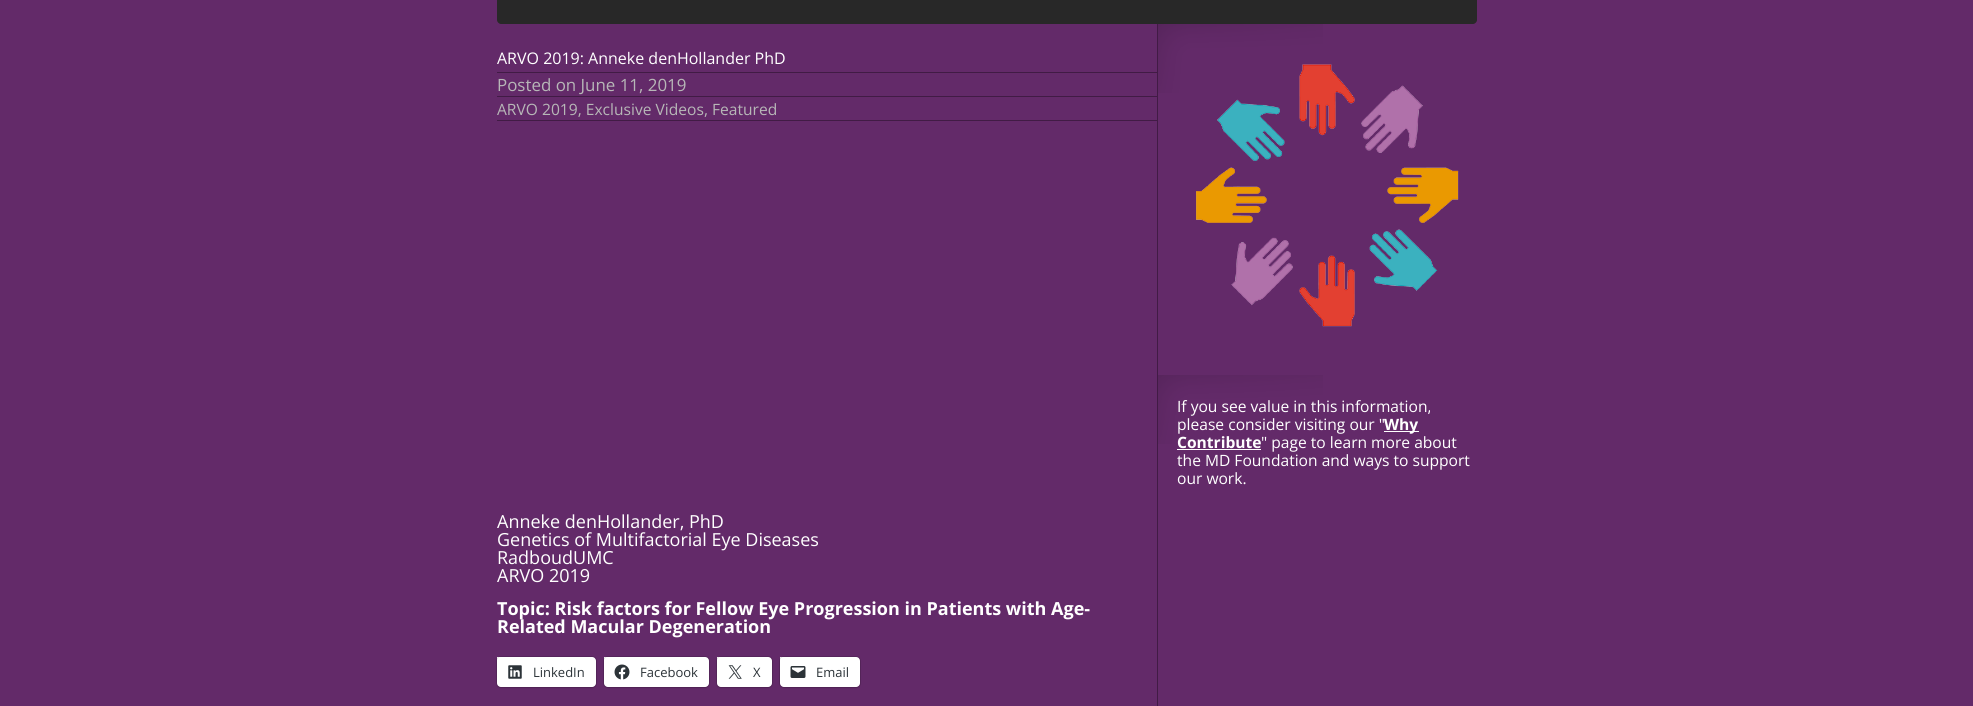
import math
import cairocffi as cairo

surface = cairo.ImageSurface(cairo.FORMAT_RGB24, 1973, 706)
ctx = cairo.Context(surface)
options = cairo.FontOptions()
options.set_hint_metrics(cairo.HINT_METRICS_OFF)
options.set_hint_style(cairo.HINT_STYLE_NONE)
ctx.set_font_options(options)
ctx.set_miter_limit(4)


def rgb(r, g, b):
    ctx.set_source_rgb(r / 255, g / 255, b / 255)


def face(family, size, italic, bold):
    ctx.select_font_face(family, cairo.FONT_SLANT_ITALIC if italic else cairo.FONT_SLANT_NORMAL, cairo.FONT_WEIGHT_BOLD if bold else cairo.FONT_WEIGHT_NORMAL)
    ctx.set_font_size(size)


def label(x, y, s):
    ctx.move_to(x, y)
    ctx.show_text(s)


def rect(x, y, w, h):
    ctx.rectangle(x, y, w, h)
    ctx.fill()


def rrect(x, y, w, h, r):
    ctx.new_sub_path()
    for i, (u, v) in enumerate([(x + w - r, y + h - r), (x + r, y + h - r), (x + r, y + r), (x + w - r, y + r)]):
        ctx.arc(u, v, r, i * math.pi / 2, (i + 1) * math.pi / 2)
    ctx.close_path()


def soft_shadow(x, y, w, h, r, blur, alpha):
    ctx.push_group_with_content(cairo.CONTENT_ALPHA)
    ctx.set_operator(cairo.OPERATOR_SOURCE)
    for i in range(15, -16, -2):
        e = blur * i / 6
        if min(w, h) + 2 * e > 0:
            ctx.set_source_rgba(0, 0, 0, alpha * math.erfc((i - 1) / 8.5) / 2)
            rrect(x - e, y - e, w + 2 * e, h + 2 * e, max(0, min(r + e + blur * .6, min(w, h) / 2 + e)))
            ctx.fill()
    ctx.mask(ctx.pop_group())


def image(path, x, y, w, h):
    ctx.save()
    ctx.set_source_surface(cairo.ImageSurface.create_from_png(path), x, y)
    ctx.rectangle(x, y, w, h)
    ctx.fill()
    ctx.restore()


rgb(99, 42, 105)
ctx.paint()
rgb(40, 40, 40)
ctx.new_path()
ctx.move_to(497, -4)
ctx.line_to(1477, -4)
ctx.line_to(1477, 20)
ctx.curve_to(1477, 22, 1475, 24, 1473, 24)
ctx.line_to(501, 24)
ctx.curve_to(499, 24, 497, 22, 497, 20)
ctx.close_path()
ctx.fill()
rgb(65, 27, 69)
rect(1157, 24, 1, 682)
rect(497, 72, 660, 1)
face('Open Sans', 16, 0, 0)
rgb(255, 255, 255)
label(497, 64, 'ARVO 2019: Anneke denHollander PhD')
rgb(65, 27, 69)
rect(497, 96, 660, 1)
face('Open Sans', 16.9, 0, 0)
rgb(183, 183, 183)
label(497, 91, 'Posted on June 11, 2019')
rgb(65, 27, 69)
rect(497, 120, 660, 1)
face('Open Sans', 15.6, 0, 0)
rgb(183, 183, 183)
label(497, 115, 'ARVO 2019, Exclusive Videos, Featured')
face('Open Sans', 18, 0, 0)
rgb(255, 255, 255)
label(497, 528, 'Anneke denHollander, PhD')
label(497, 546, 'Genetics of Multifactorial Eye Diseases')
label(497, 564, 'RadboudUMC')
label(497, 582, 'ARVO 2019')
face('Open Sans', 18, 0, 1)
label(497, 615, 'Topic: Risk factors for Fellow Eye Progression in Patients with Age-')
label(497, 633, 'Related Macular Degeneration')
image('image0.png', 497, 657, 4, 4)
rrect(496.5, 656.5, 100, 31, 4.5)
ctx.set_source_rgba(0, 0, 0, 0.12)
ctx.set_line_width(1)
ctx.stroke()
rgb(0, 0, 0)
soft_shadow(497, 658, 99, 30, 4, 1, 0.12)
rgb(255, 255, 255)
rrect(497, 657, 99, 30, 4)
ctx.fill()
image('image1.png', 508, 665, 14, 14)
face('Open Sans', 13, 0, 0)
rgb(44, 51, 56)
label(533, 677, 'LinkedIn')
image('image2.png', 604, 657, 4, 4)
rrect(603.5, 656.5, 106, 31, 4.5)
ctx.set_source_rgba(0, 0, 0, 0.12)
ctx.stroke()
rgb(0, 0, 0)
soft_shadow(604, 658, 105, 30, 4, 1, 0.12)
rgb(255, 255, 255)
rrect(604, 657, 105, 30, 4)
ctx.fill()
image('image3.png', 614, 664, 16, 16)
rgb(44, 51, 56)
label(640, 677, 'Facebook')
image('image2.png', 717, 657, 4, 4)
rrect(716.5, 656.5, 56, 31, 4.5)
ctx.set_source_rgba(0, 0, 0, 0.12)
ctx.stroke()
rgb(0, 0, 0)
soft_shadow(717, 658, 55, 30, 4, 1, 0.12)
rgb(255, 255, 255)
rrect(717, 657, 55, 30, 4)
ctx.fill()
image('image4.png', 728, 665, 14, 14)
rgb(44, 51, 56)
label(753, 677, 'X')
image('image2.png', 780, 657, 4, 4)
rrect(779.5, 656.5, 81, 31, 4.5)
ctx.set_source_rgba(0, 0, 0, 0.12)
ctx.stroke()
rgb(0, 0, 0)
soft_shadow(780, 658, 80, 30, 4, 1, 0.12)
rgb(255, 255, 255)
rrect(780, 657, 80, 30, 4)
ctx.fill()
image('image5.png', 790, 666, 16, 12)
rgb(44, 51, 56)
label(816, 677, 'Email')
image('image6.png', 1158, 24, 165, 69)
image('image7.png', 1196, 64, 263, 263)
image('image6.png', 1158, 375, 165, 69)
face('Open Sans', 15.6, 0, 0)
rgb(255, 255, 255)
label(1177, 412, 'If you see value in this information,')
label(1177, 430, 'please consider visiting our "')
rect(1384, 431, 35, 1)
face('Open Sans', 15.6, 0, 1)
label(1384, 430, 'Why')
label(1177, 448, 'Contribute')
rect(1177, 449, 84, 1)
face('Open Sans', 15.6, 0, 0)
label(1261, 448, '" page to learn more about')
label(1177, 466, 'the MD Foundation and ways to support')
label(1177, 484, 'our work.')
surface.write_to_png('render.png')
